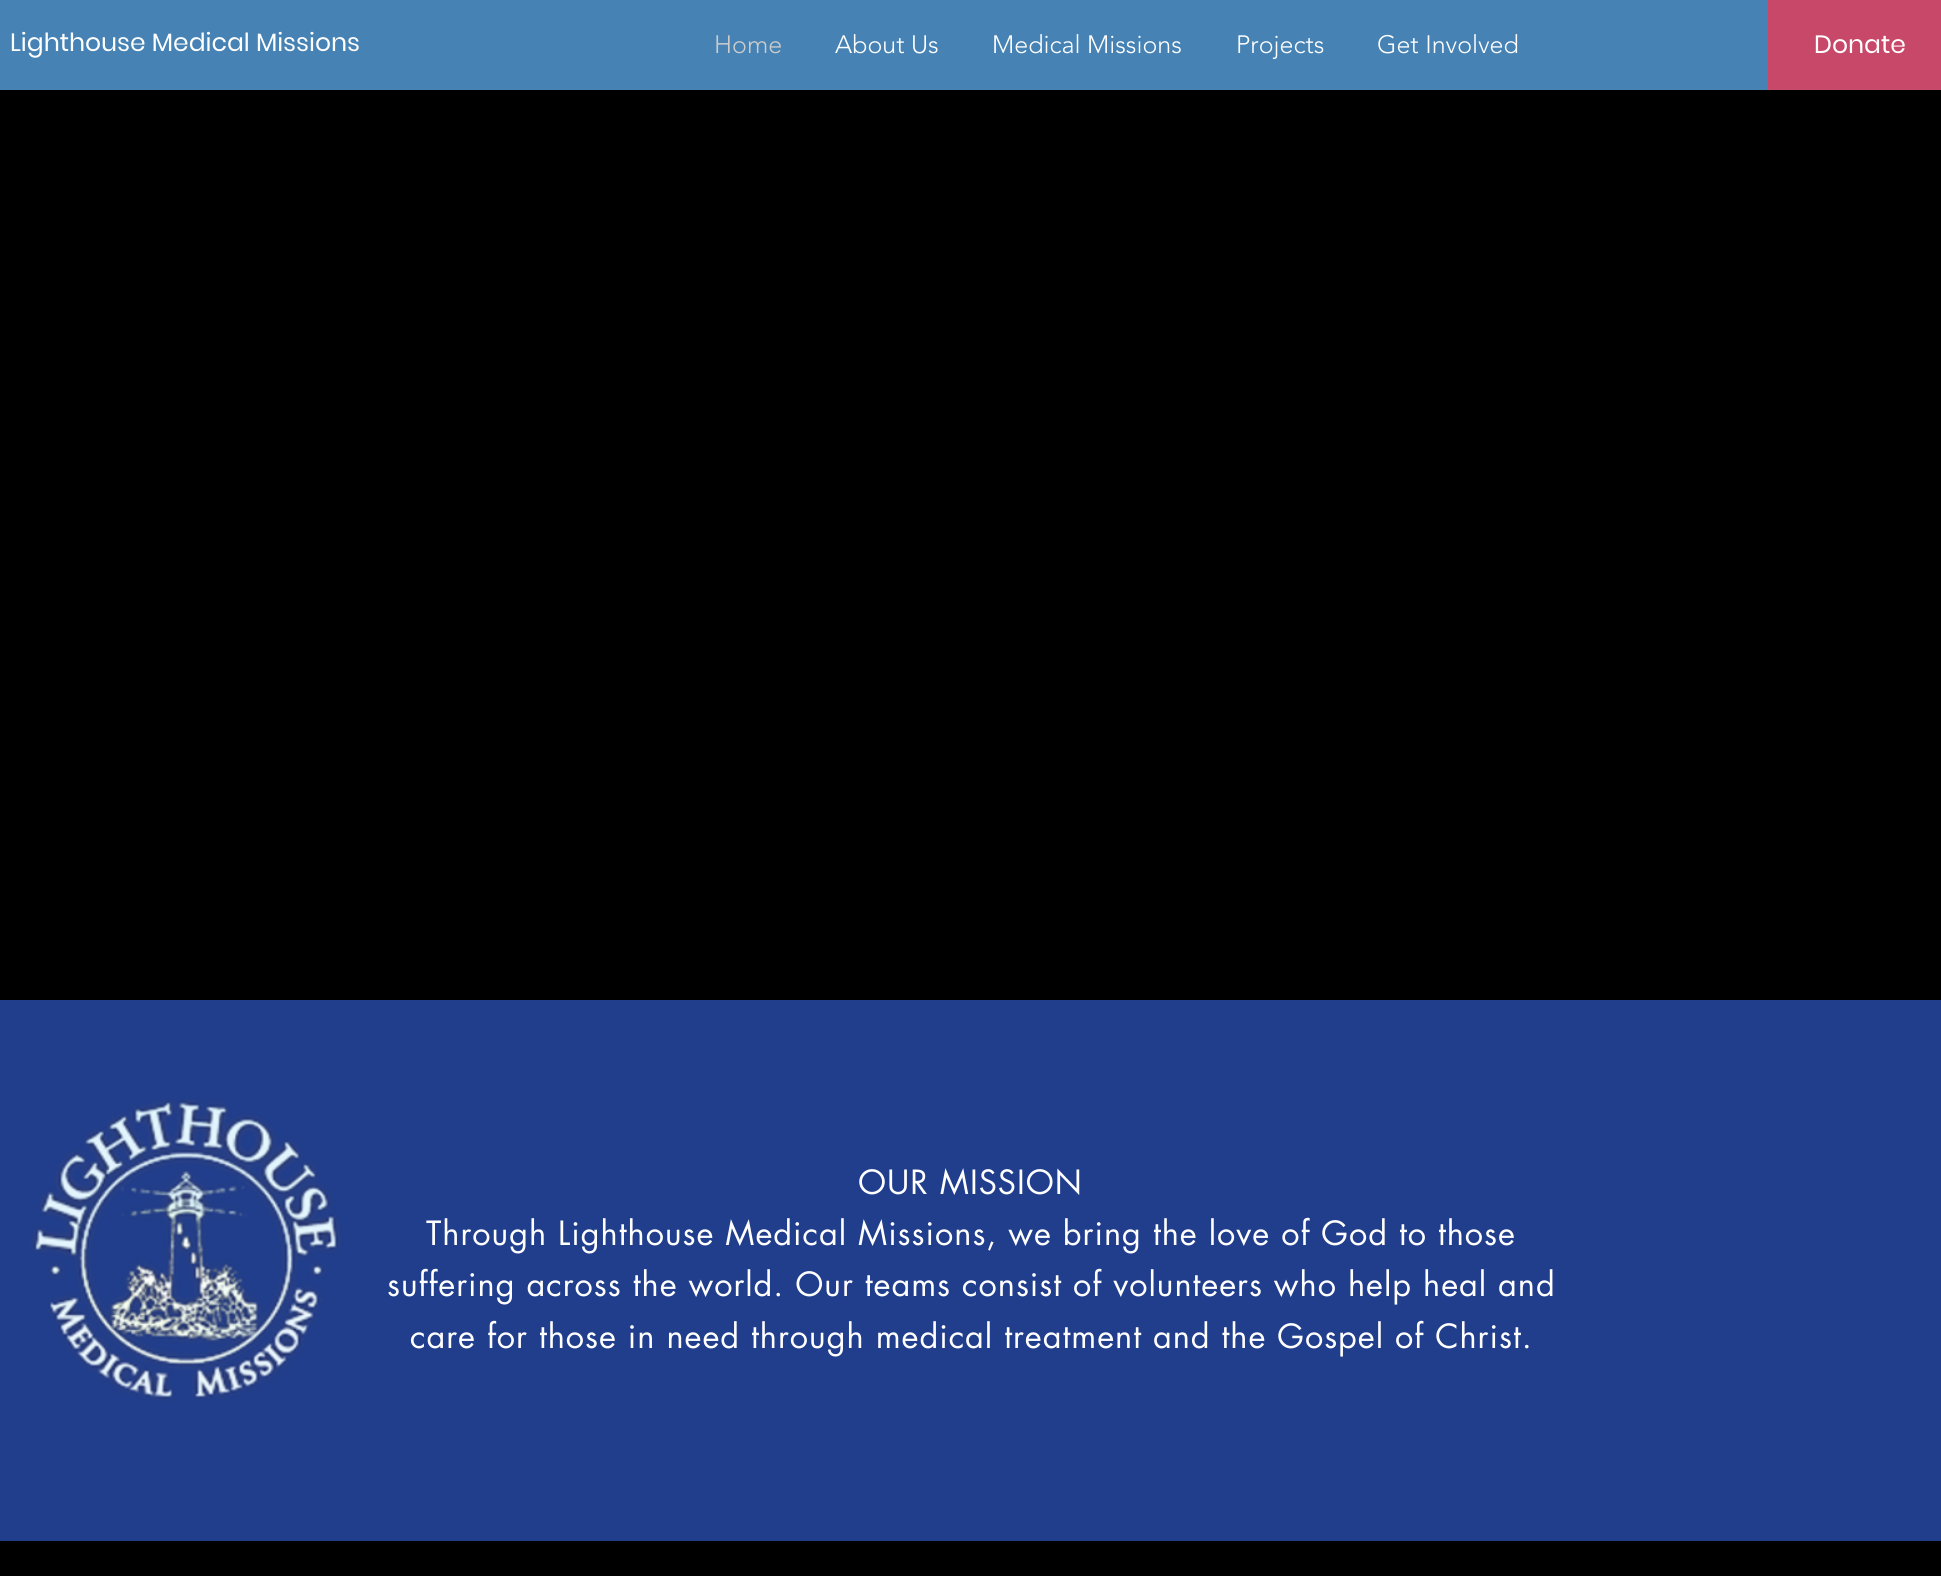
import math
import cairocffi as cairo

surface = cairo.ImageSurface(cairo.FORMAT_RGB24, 1941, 1576)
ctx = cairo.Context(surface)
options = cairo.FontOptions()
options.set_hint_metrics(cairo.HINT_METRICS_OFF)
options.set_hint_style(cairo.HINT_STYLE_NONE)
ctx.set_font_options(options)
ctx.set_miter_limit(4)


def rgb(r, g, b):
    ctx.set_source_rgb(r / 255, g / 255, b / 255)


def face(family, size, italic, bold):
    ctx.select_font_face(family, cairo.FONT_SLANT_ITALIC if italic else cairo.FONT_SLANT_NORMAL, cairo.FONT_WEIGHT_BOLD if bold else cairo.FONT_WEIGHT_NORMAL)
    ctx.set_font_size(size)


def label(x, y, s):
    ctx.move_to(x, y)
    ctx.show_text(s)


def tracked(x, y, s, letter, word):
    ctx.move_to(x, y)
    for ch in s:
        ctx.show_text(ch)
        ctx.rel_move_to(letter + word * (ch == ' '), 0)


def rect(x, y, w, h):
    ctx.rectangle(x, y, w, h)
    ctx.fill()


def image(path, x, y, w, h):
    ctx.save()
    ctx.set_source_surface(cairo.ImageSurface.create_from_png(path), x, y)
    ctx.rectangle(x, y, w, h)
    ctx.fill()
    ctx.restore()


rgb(0, 0, 0)
ctx.paint()
rgb(70, 130, 180)
rect(0, 0, 1768, 90)
face('Poppins', 25, 0, 0)
rgb(255, 255, 255)
label(10, 51, 'Lighthouse Medical Missions')
face('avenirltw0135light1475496 Light', 25, 0, 0)
rgb(204, 204, 204)
label(714, 53, 'Home')
rgb(255, 255, 255)
label(835, 53, 'About Us')
label(992, 53, 'Medical Missions')
label(1236, 53, 'Projects')
label(1377, 53, 'Get Involved')
rgb(200, 72, 105)
rect(1768, 0, 173, 90)
face('Poppins', 25, 0, 0)
rgb(255, 255, 255)
label(1814, 53, 'Donate')
rgb(33, 62, 140)
rect(0, 1000, 1941, 541)
image('image0.png', 31, 1099, 310, 302)
face('futura', 32.5, 0, 0)
rgb(255, 255, 255)
tracked(858, 1194, 'OUR MISSION', 0.98, 0)
tracked(426, 1245, 'Through Lighthouse Medical Missions, we bring the love of God to those', 0.98, 0)
tracked(387, 1296, 'suffering across the world. Our teams consist of volunteers who help heal and', 0.98, 0)
tracked(410, 1348, 'care for those in need through medical treatment and the Gospel of Christ.', 0.98, 0)
surface.write_to_png('render.png')
